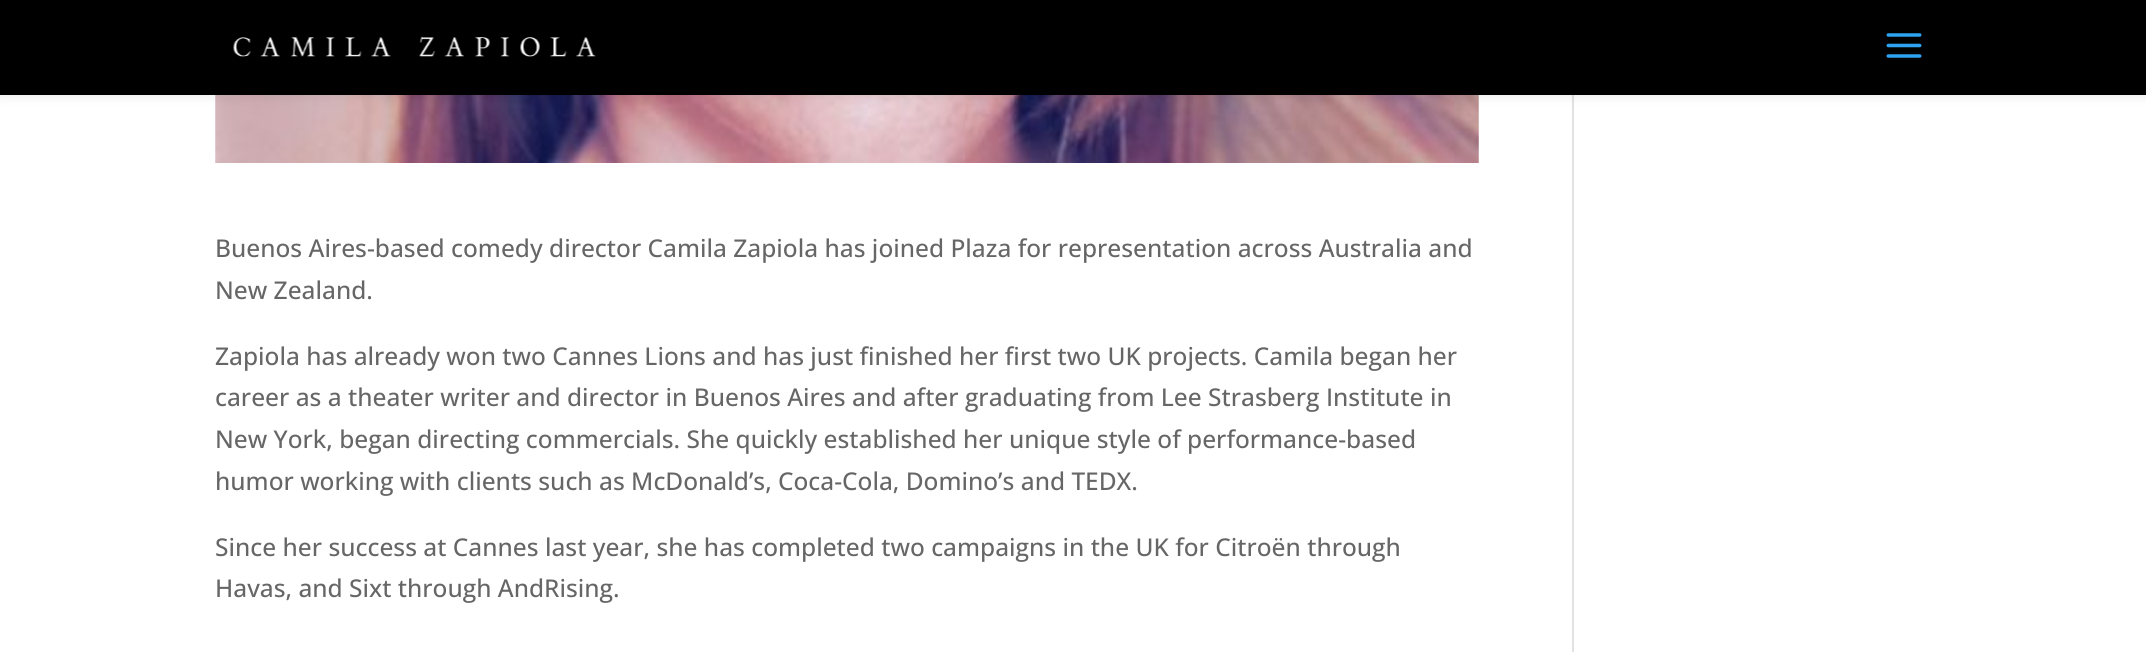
import math
import cairocffi as cairo

surface = cairo.ImageSurface(cairo.FORMAT_RGB24, 2146, 652)
ctx = cairo.Context(surface)
options = cairo.FontOptions()
options.set_hint_metrics(cairo.HINT_METRICS_OFF)
options.set_hint_style(cairo.HINT_STYLE_NONE)
ctx.set_font_options(options)
ctx.set_miter_limit(4)


def rgb(r, g, b):
    ctx.set_source_rgb(r / 255, g / 255, b / 255)


def face(family, size, italic, bold):
    ctx.select_font_face(family, cairo.FONT_SLANT_ITALIC if italic else cairo.FONT_SLANT_NORMAL, cairo.FONT_WEIGHT_BOLD if bold else cairo.FONT_WEIGHT_NORMAL)
    ctx.set_font_size(size)


def label(x, y, s):
    ctx.move_to(x, y)
    ctx.show_text(s)


def rect(x, y, w, h):
    ctx.rectangle(x, y, w, h)
    ctx.fill()


def rrect(x, y, w, h, r):
    ctx.new_sub_path()
    for i, (u, v) in enumerate([(x + w - r, y + h - r), (x + r, y + h - r), (x + r, y + r), (x + w - r, y + r)]):
        ctx.arc(u, v, r, i * math.pi / 2, (i + 1) * math.pi / 2)
    ctx.close_path()


def soft_shadow(x, y, w, h, r, blur, alpha):
    ctx.push_group_with_content(cairo.CONTENT_ALPHA)
    ctx.set_operator(cairo.OPERATOR_SOURCE)
    for i in range(15, -16, -2):
        e = blur * i / 6
        if min(w, h) + 2 * e > 0:
            ctx.set_source_rgba(0, 0, 0, alpha * math.erfc((i - 1) / 8.5) / 2)
            rrect(x - e, y - e, w + 2 * e, h + 2 * e, max(0, min(r + e + blur * .6, min(w, h) / 2 + e)))
            ctx.fill()
    ctx.mask(ctx.pop_group())


def image(path, x, y, w, h):
    ctx.save()
    ctx.set_source_surface(cairo.ImageSurface.create_from_png(path), x, y)
    ctx.rectangle(x, y, w, h)
    ctx.fill()
    ctx.restore()


rgb(255, 255, 255)
ctx.paint()
image('image2.png', 215, 95, 1264, 68)
rgb(226, 226, 226)
rect(1572, 95, 2, 557)
rgb(0, 0, 0)
soft_shadow(0, 0, 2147, 95, 0, 6, 0.1)
rgb(0, 0, 0)
rect(0, 0, 2146, 95)
image('image0.png', 233, 36, 363, 21)
image('image1.png', 1886, 33, 36, 25)
face('Open Sans Medium', 24.5, 0, 0)
rgb(102, 102, 102)
label(215, 257, 'Buenos Aires-based comedy director Camila Zapiola has joined Plaza for representation across Australia and')
label(215, 299, 'New Zealand.')
label(215, 365, 'Zapiola has already won two Cannes Lions and has just finished her first two UK projects. Camila began her')
label(215, 406, 'career as a theater writer and director in Buenos Aires and after graduating from Lee Strasberg Institute in')
label(215, 448, 'New York, began directing commercials. She quickly established her unique style of performance-based')
label(215, 490, 'humor working with clients such as McDonald’s, Coca-Cola, Domino’s and TEDX.')
label(215, 556, 'Since her success at Cannes last year, she has completed two campaigns in the UK for Citroën through')
label(215, 597, 'Havas, and Sixt through AndRising.')
surface.write_to_png('render.png')
